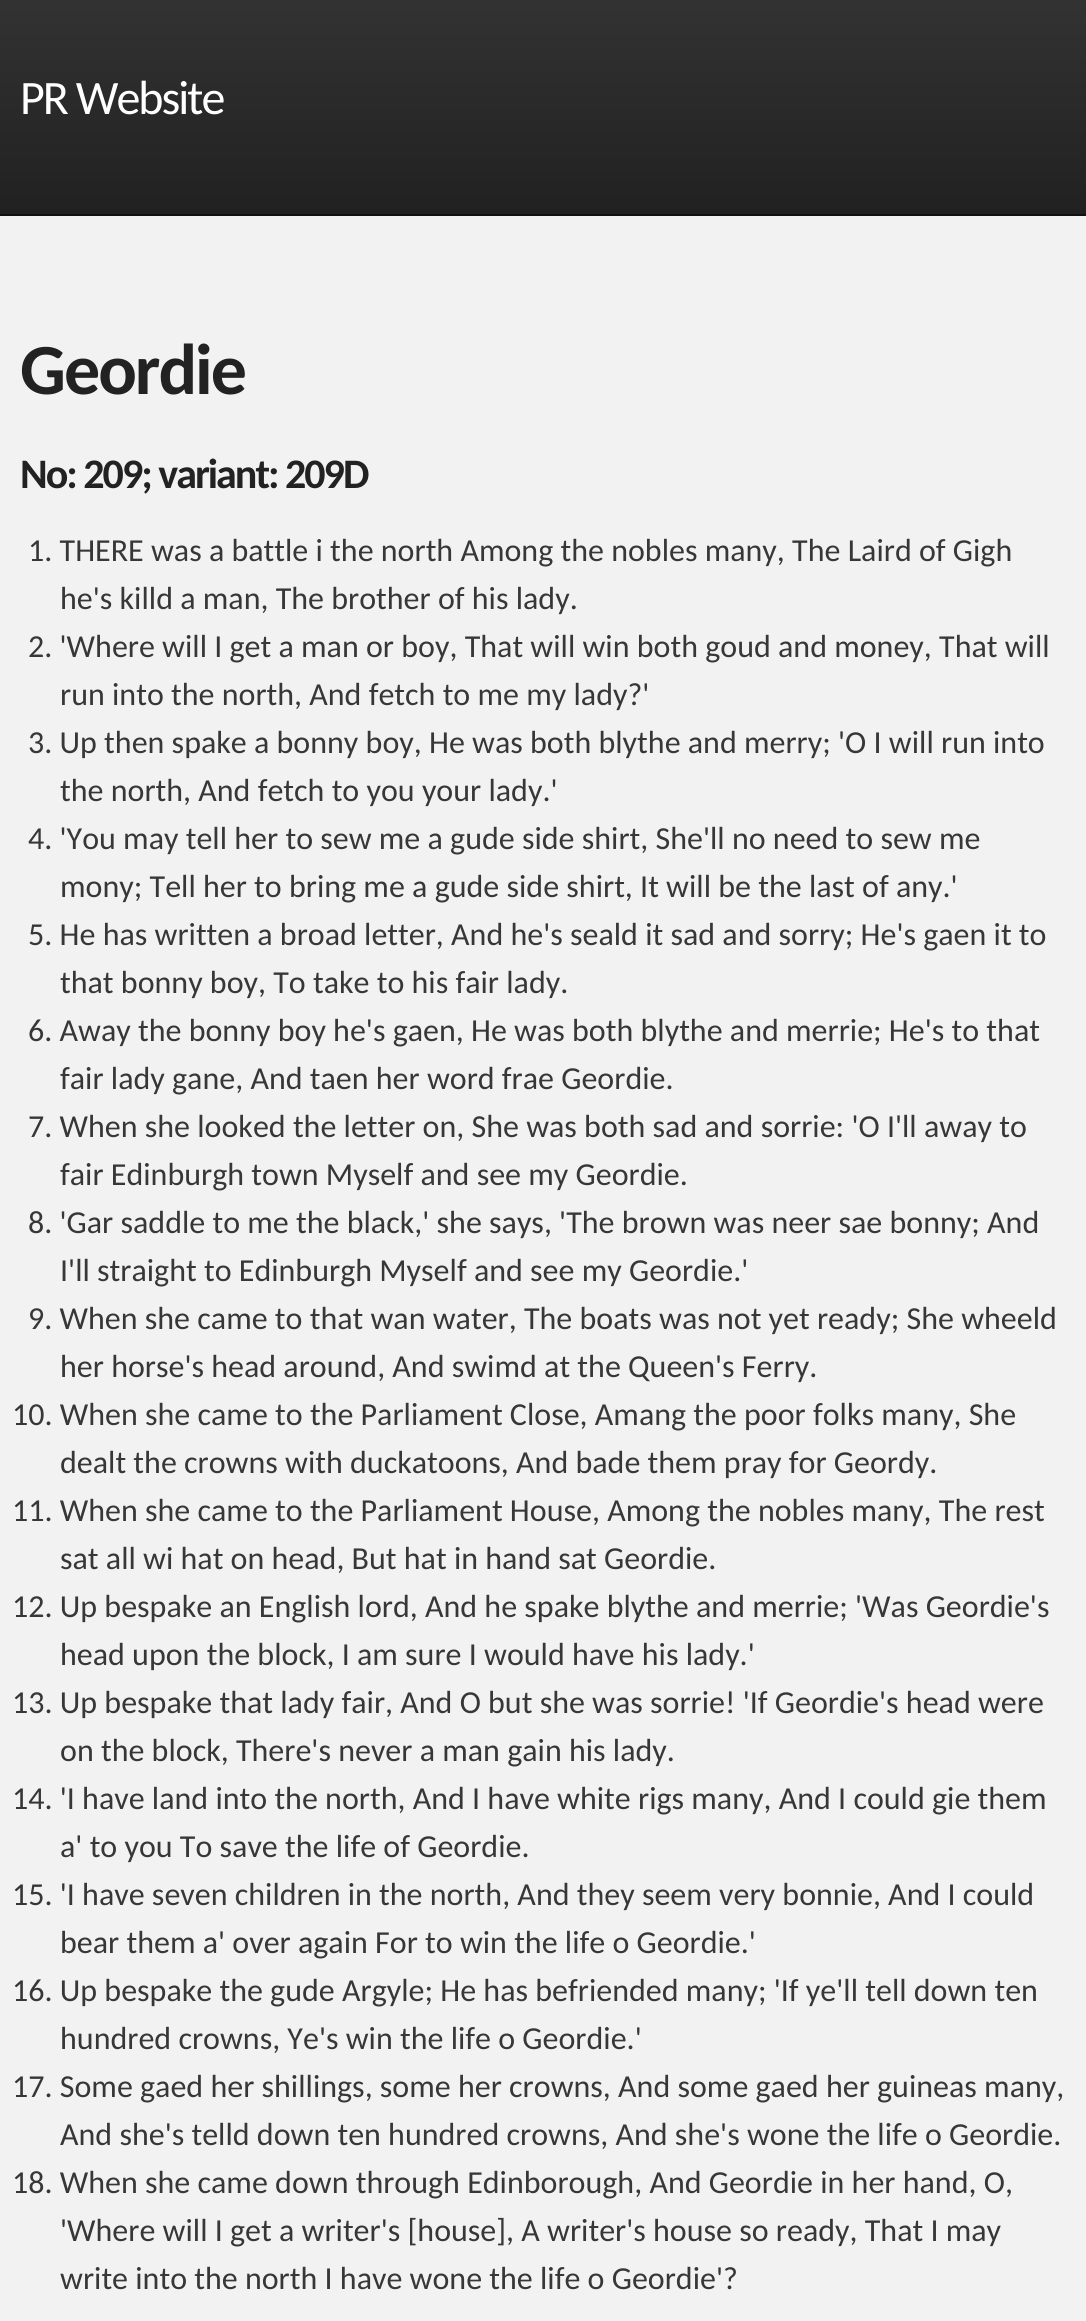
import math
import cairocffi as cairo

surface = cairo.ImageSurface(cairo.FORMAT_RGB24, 1086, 2321)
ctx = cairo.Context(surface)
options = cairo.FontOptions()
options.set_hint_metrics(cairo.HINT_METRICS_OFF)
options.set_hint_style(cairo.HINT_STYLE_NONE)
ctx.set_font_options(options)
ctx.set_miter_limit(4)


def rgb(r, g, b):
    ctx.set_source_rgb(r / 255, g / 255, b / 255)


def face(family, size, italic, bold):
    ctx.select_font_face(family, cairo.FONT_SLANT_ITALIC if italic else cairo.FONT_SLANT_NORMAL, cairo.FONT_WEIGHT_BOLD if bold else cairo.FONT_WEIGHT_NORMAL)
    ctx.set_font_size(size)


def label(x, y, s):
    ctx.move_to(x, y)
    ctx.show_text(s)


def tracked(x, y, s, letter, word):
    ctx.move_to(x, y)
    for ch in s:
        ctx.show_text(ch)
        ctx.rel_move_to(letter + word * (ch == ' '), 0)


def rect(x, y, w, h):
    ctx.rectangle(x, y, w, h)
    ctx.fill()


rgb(255, 255, 255)
ctx.paint()
gradient = cairo.LinearGradient(543, -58, 543, 214)
gradient.add_color_stop_rgba(0, 0.216, 0.216, 0.216, 1)
gradient.add_color_stop_rgba(1, 0.129, 0.129, 0.129, 1)
ctx.set_source(gradient)
rect(0, 0, 1086, 214)
face('Carlito', 48, 0, 0)
rgb(255, 255, 255)
tracked(20, 114, 'PR Website', -2, 0)
rgb(242, 242, 242)
rect(0, 216, 1086, 2105)
rgb(17, 17, 17)
rect(0, 214, 1086, 2)
face('Carlito', 72, 0, 1)
rgb(34, 34, 34)
tracked(20, 394, 'Geordie', -2, 0)
face('Carlito', 42, 0, 1)
tracked(20, 488, 'No: 209; variant: 209D', -2, 0)
face('Carlito', 32, 0, 0)
rgb(55, 55, 55)
label(28, 561, '1. THERE was a battle i the north Among the nobles many, The Laird of Gigh')
label(60, 609, 'he\'s killd a man, The brother of his lady.')
label(28, 657, '2. \'Where will I get a man or boy, That will win both goud and money, That will')
label(60, 705, 'run into the north, And fetch to me my lady?\'')
label(28, 753, '3. Up then spake a bonny boy, He was both blythe and merry; \'O I will run into')
label(60, 801, 'the north, And fetch to you your lady.\'')
label(28, 849, '4. \'You may tell her to sew me a gude side shirt, She\'ll no need to sew me')
label(60, 897, 'mony; Tell her to bring me a gude side shirt, It will be the last of any.\'')
label(28, 945, '5. He has written a broad letter, And he\'s seald it sad and sorry; He\'s gaen it to')
label(60, 993, 'that bonny boy, To take to his fair lady.')
label(28, 1041, '6. Away the bonny boy he\'s gaen, He was both blythe and merrie; He\'s to that')
label(60, 1089, 'fair lady gane, And taen her word frae Geordie.')
label(28, 1137, '7. When she looked the letter on, She was both sad and sorrie: \'O I\'ll away to')
label(60, 1185, 'fair Edinburgh town Myself and see my Geordie.')
label(28, 1233, '8. \'Gar saddle to me the black,\' she says, \'The brown was neer sae bonny; And')
label(60, 1281, 'I\'ll straight to Edinburgh Myself and see my Geordie.\'')
label(28, 1329, '9. When she came to that wan water, The boats was not yet ready; She wheeld')
label(60, 1377, 'her horse\'s head around, And swimd at the Queen\'s Ferry.')
label(12, 1425, '10. When she came to the Parliament Close, Amang the poor folks many, She')
label(60, 1473, 'dealt the crowns with duckatoons, And bade them pray for Geordy.')
label(12, 1521, '11. When she came to the Parliament House, Among the nobles many, The rest')
label(60, 1569, 'sat all wi hat on head, But hat in hand sat Geordie.')
label(12, 1617, '12. Up bespake an English lord, And he spake blythe and merrie; \'Was Geordie\'s')
label(60, 1665, 'head upon the block, I am sure I would have his lady.\'')
label(12, 1713, '13. Up bespake that lady fair, And O but she was sorrie! \'If Geordie\'s head were')
label(60, 1761, 'on the block, There\'s never a man gain his lady.')
label(12, 1809, '14. \'I have land into the north, And I have white rigs many, And I could gie them')
label(60, 1857, 'a\' to you To save the life of Geordie.')
label(12, 1905, '15. \'I have seven children in the north, And they seem very bonnie, And I could')
label(60, 1953, 'bear them a\' over again For to win the life o Geordie.\'')
label(12, 2001, '16. Up bespake the gude Argyle; He has befriended many; \'If ye\'ll tell down ten')
label(60, 2049, 'hundred crowns, Ye\'s win the life o Geordie.\'')
label(12, 2097, '17. Some gaed her shillings, some her crowns, And some gaed her guineas many,')
label(60, 2145, 'And she\'s telld down ten hundred crowns, And she\'s wone the life o Geordie.')
label(12, 2193, '18. When she came down through Edinborough, And Geordie in her hand, O,')
label(60, 2241, '\'Where will I get a writer\'s [house], A writer\'s house so ready, That I may')
label(60, 2289, 'write into the north I have wone the life o Geordie\'?')
surface.write_to_png('render.png')
